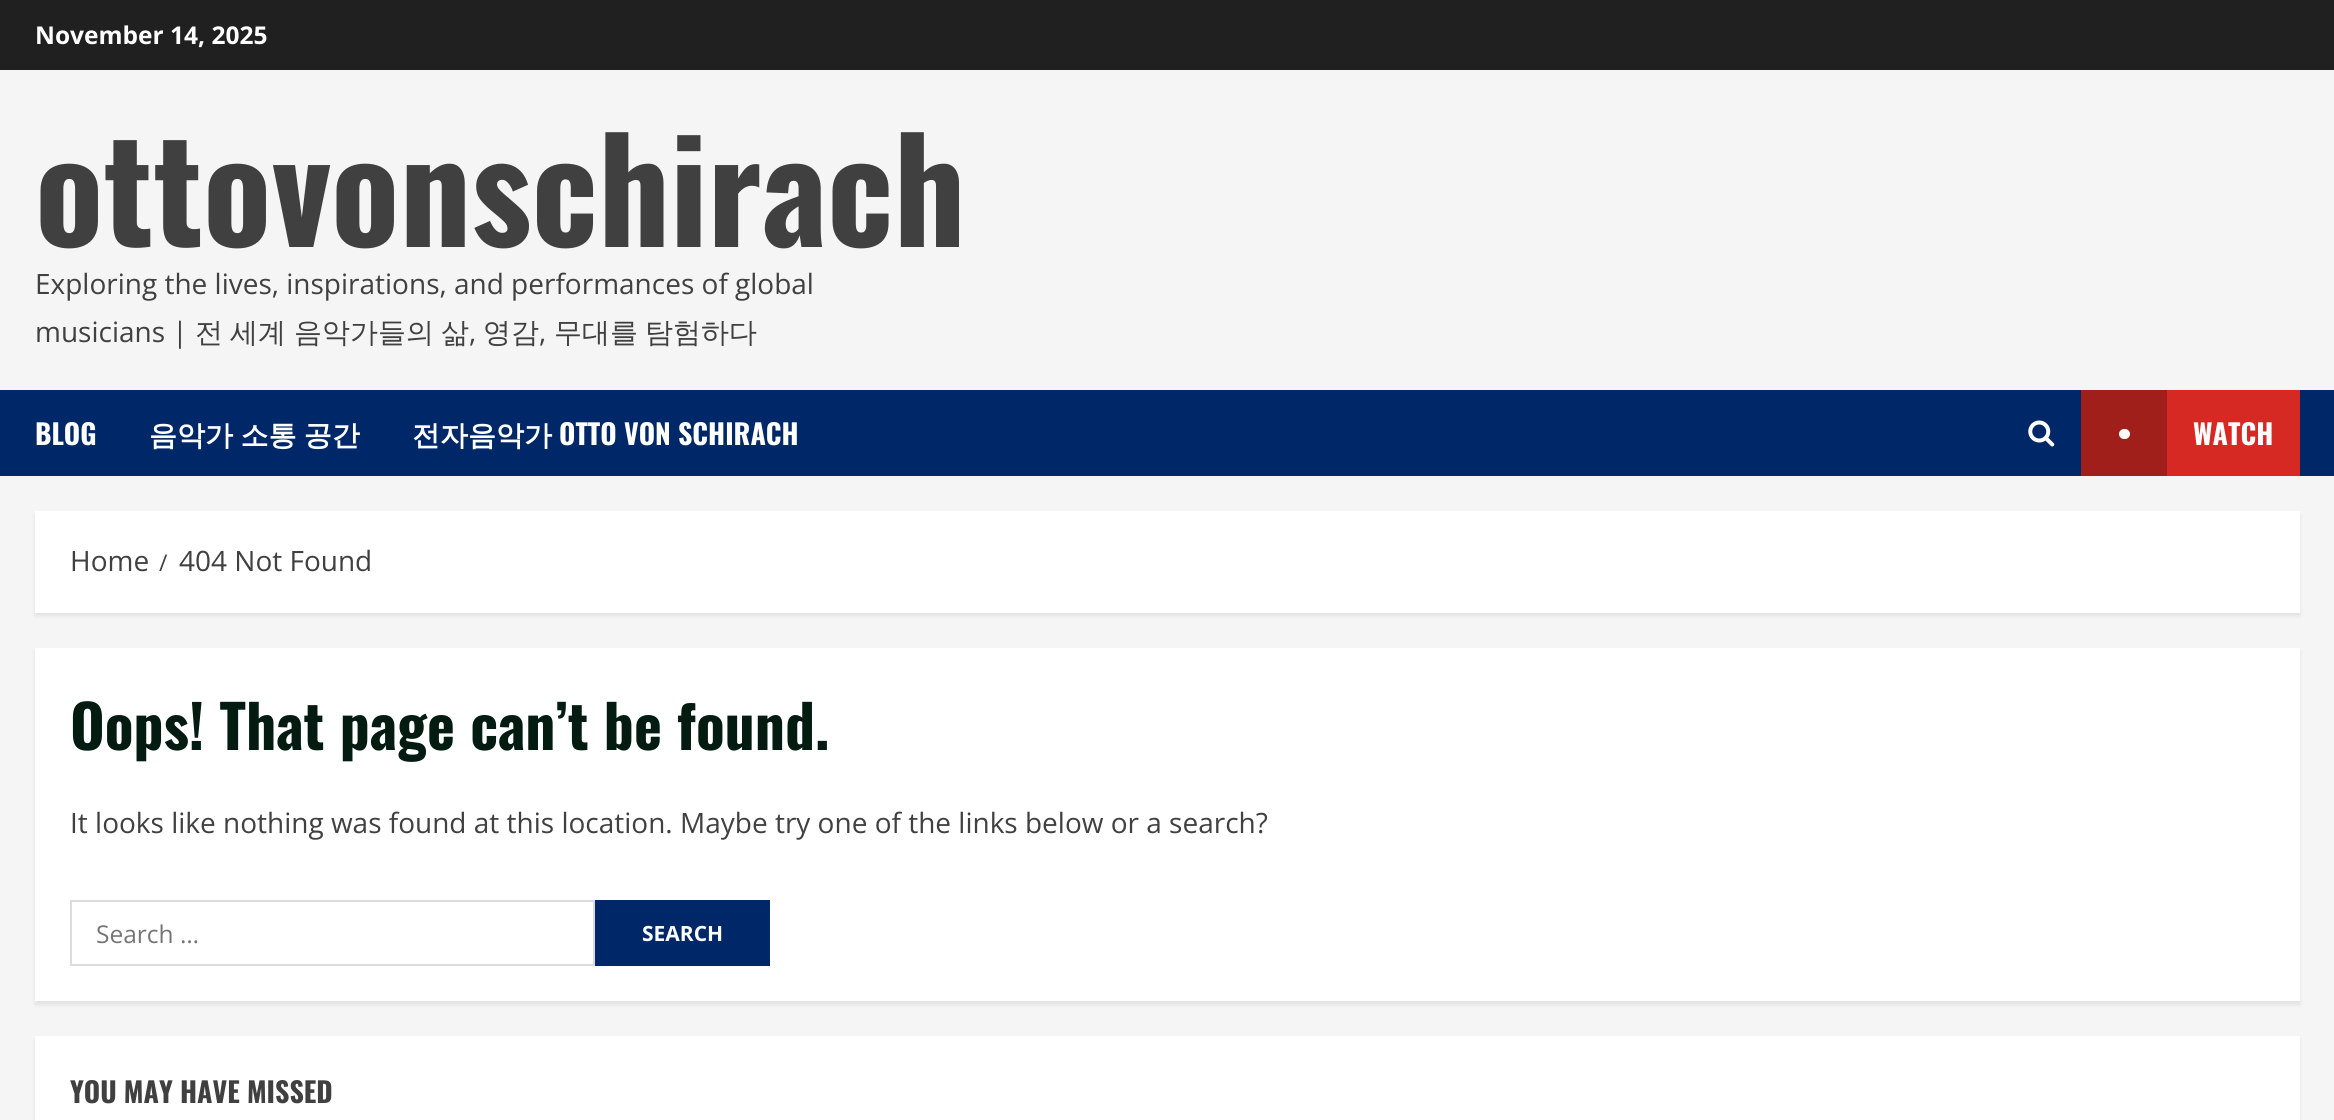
import math
import cairocffi as cairo

surface = cairo.ImageSurface(cairo.FORMAT_RGB24, 2334, 1120)
ctx = cairo.Context(surface)
options = cairo.FontOptions()
options.set_hint_metrics(cairo.HINT_METRICS_OFF)
options.set_hint_style(cairo.HINT_STYLE_NONE)
ctx.set_font_options(options)
ctx.set_miter_limit(4)


def rgb(r, g, b):
    ctx.set_source_rgb(r / 255, g / 255, b / 255)


def face(family, size, italic, bold):
    ctx.select_font_face(family, cairo.FONT_SLANT_ITALIC if italic else cairo.FONT_SLANT_NORMAL, cairo.FONT_WEIGHT_BOLD if bold else cairo.FONT_WEIGHT_NORMAL)
    ctx.set_font_size(size)


def label(x, y, s):
    ctx.move_to(x, y)
    ctx.show_text(s)


def tracked(x, y, s, letter, word):
    ctx.move_to(x, y)
    for ch in s:
        ctx.show_text(ch)
        ctx.rel_move_to(letter + word * (ch == ' '), 0)


def rect(x, y, w, h):
    ctx.rectangle(x, y, w, h)
    ctx.fill()


def rrect(x, y, w, h, r):
    ctx.new_sub_path()
    for i, (u, v) in enumerate([(x + w - r, y + h - r), (x + r, y + h - r), (x + r, y + r), (x + w - r, y + r)]):
        ctx.arc(u, v, r, i * math.pi / 2, (i + 1) * math.pi / 2)
    ctx.close_path()


def soft_shadow(x, y, w, h, r, blur, alpha):
    ctx.push_group_with_content(cairo.CONTENT_ALPHA)
    ctx.set_operator(cairo.OPERATOR_SOURCE)
    for i in range(15, -16, -2):
        e = blur * i / 6
        if min(w, h) + 2 * e > 0:
            ctx.set_source_rgba(0, 0, 0, alpha * math.erfc((i - 1) / 8.5) / 2)
            rrect(x - e, y - e, w + 2 * e, h + 2 * e, max(0, min(r + e + blur * .6, min(w, h) / 2 + e)))
            ctx.fill()
    ctx.mask(ctx.pop_group())


def image(path, x, y, w, h):
    ctx.save()
    ctx.set_source_surface(cairo.ImageSurface.create_from_png(path), x, y)
    ctx.rectangle(x, y, w, h)
    ctx.fill()
    ctx.restore()


rgb(245, 245, 245)
ctx.paint()
rgb(32, 32, 32)
rect(0, 0, 2334, 70)
face('Open Sans', 24.5, 0, 1)
rgb(255, 255, 255)
label(35, 44, 'November 14, 2025')
face('Oswald', 141.75, 0, 1)
rgb(64, 64, 64)
label(35, 247, 'ottovonschirach')
face('Open Sans', 28, 0, 0)
label(35, 294, 'Exploring the lives, inspirations, and performances of global')
label(35, 342, 'musicians |')
face('WenQuanYi Zen Hei Medium', 28, 0, 0)
label(195, 342, '전')
label(230, 342, '세계')
label(294, 342, '음악가들의')
label(441, 342, '삶')
face('Open Sans', 28, 0, 0)
label(469, 342, ',')
face('WenQuanYi Zen Hei Medium', 28, 0, 0)
label(483, 342, '영감')
face('Open Sans', 28, 0, 0)
label(539, 342, ',')
face('WenQuanYi Zen Hei Medium', 28, 0, 0)
label(554, 342, '무대를')
label(645, 342, '탐험하다')
rgb(0, 40, 104)
rect(0, 390, 2334, 86)
face('Oswald', 28, 0, 1)
rgb(255, 255, 255)
label(35, 445, 'BLOG')
face('WenQuanYi Zen Hei', 28, 0, 1)
tracked(149, 445, '음악가 소통 공간', 0, -1)
label(412, 445, '전자음악가')
face('Oswald', 28, 0, 1)
label(559, 445, 'OTTO VON SCHIRACH')
image('image0.png', 2028, 420, 27, 27)
rgb(215, 41, 36)
rect(2167, 390, 133, 86)
rgb(161, 31, 27)
rect(2081, 390, 86, 86)
rgb(255, 255, 255)
rrect(2119, 429, 11, 10, 5)
ctx.fill()
label(2193, 445, 'WATCH')
rgb(0, 0, 0)
soft_shadow(35, 515, 2265, 101, 0, 2, 0.08)
rgb(255, 255, 255)
rect(35, 511, 2265, 102)
face('Open Sans', 28, 0, 0)
rgb(64, 64, 64)
label(70, 571, 'Home')
face('Open Sans', 23, 0, 0)
label(159, 571, '/')
face('Open Sans', 28, 0, 0)
label(179, 571, '404 Not Found')
rgb(0, 0, 0)
soft_shadow(35, 651, 2265, 354, 0, 2, 0.08)
rgb(255, 255, 255)
rect(35, 648, 2265, 353)
face('Oswald', 59.5, 0, 1)
rgb(3, 27, 17)
label(70, 750, 'Oops! That page can’t be found.')
face('Open Sans', 28, 0, 0)
rgb(64, 64, 64)
label(70, 833, 'It looks like nothing was found at this location. Maybe try one of the links below or a search?')
ctx.rectangle(71, 901, 523, 64)
rgb(220, 220, 220)
ctx.stroke()
face('Open Sans', 24.5, 0, 0)
rgb(117, 117, 117)
label(96, 943, 'Search …')
rgb(0, 40, 104)
rect(595, 900, 175, 66)
face('Open Sans', 21, 0, 1)
rgb(255, 255, 255)
label(642, 941, 'SEARCH')
rgb(0, 0, 0)
soft_shadow(35, 1040, 2265, 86, 0, 2, 0.08)
rgb(255, 255, 255)
rect(35, 1036, 2265, 84)
face('Oswald', 28, 0, 1)
rgb(64, 64, 64)
label(70, 1103, 'YOU MAY HAVE MISSED')
surface.write_to_png('render.png')
